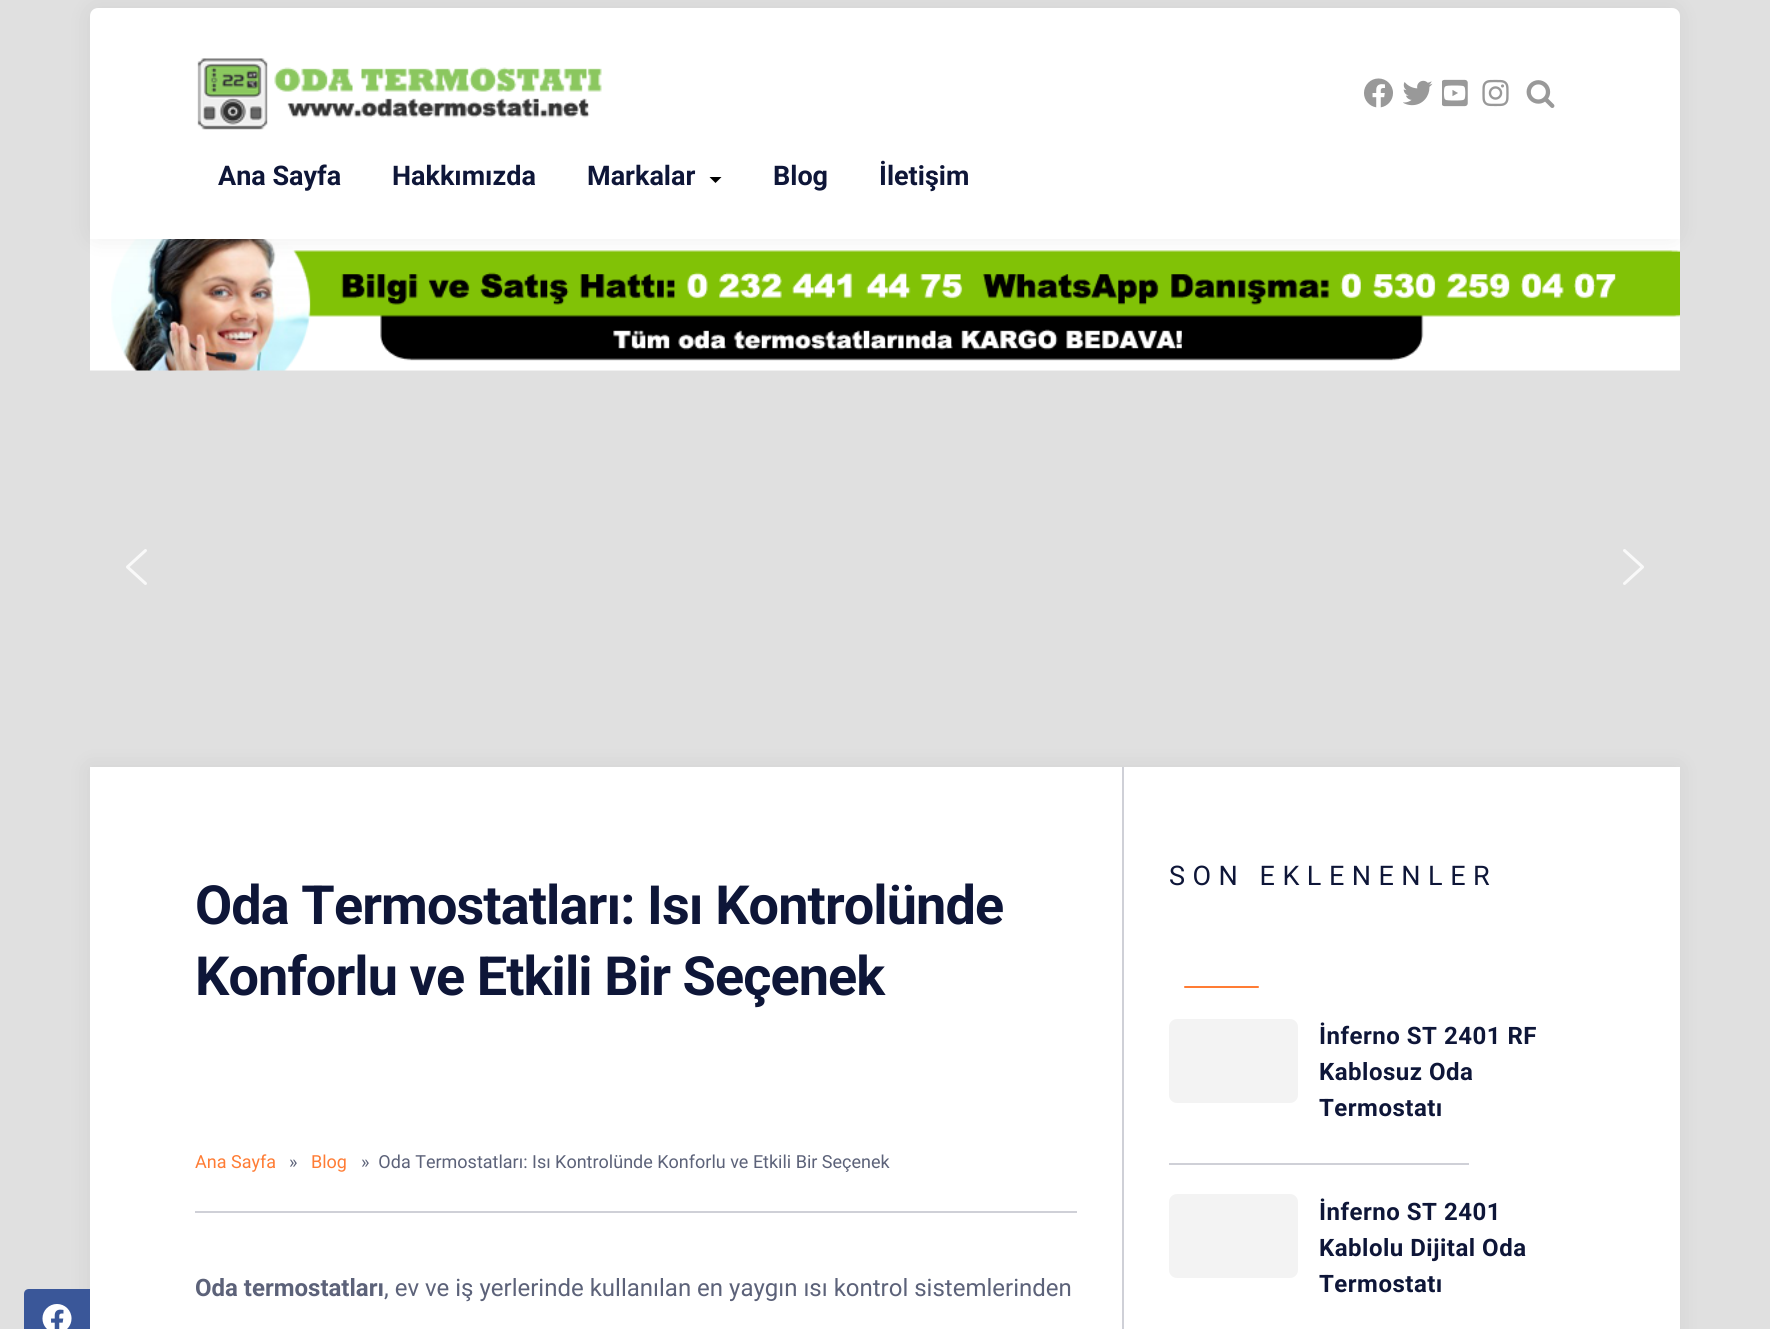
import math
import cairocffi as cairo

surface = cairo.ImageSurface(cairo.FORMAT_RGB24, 1770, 1329)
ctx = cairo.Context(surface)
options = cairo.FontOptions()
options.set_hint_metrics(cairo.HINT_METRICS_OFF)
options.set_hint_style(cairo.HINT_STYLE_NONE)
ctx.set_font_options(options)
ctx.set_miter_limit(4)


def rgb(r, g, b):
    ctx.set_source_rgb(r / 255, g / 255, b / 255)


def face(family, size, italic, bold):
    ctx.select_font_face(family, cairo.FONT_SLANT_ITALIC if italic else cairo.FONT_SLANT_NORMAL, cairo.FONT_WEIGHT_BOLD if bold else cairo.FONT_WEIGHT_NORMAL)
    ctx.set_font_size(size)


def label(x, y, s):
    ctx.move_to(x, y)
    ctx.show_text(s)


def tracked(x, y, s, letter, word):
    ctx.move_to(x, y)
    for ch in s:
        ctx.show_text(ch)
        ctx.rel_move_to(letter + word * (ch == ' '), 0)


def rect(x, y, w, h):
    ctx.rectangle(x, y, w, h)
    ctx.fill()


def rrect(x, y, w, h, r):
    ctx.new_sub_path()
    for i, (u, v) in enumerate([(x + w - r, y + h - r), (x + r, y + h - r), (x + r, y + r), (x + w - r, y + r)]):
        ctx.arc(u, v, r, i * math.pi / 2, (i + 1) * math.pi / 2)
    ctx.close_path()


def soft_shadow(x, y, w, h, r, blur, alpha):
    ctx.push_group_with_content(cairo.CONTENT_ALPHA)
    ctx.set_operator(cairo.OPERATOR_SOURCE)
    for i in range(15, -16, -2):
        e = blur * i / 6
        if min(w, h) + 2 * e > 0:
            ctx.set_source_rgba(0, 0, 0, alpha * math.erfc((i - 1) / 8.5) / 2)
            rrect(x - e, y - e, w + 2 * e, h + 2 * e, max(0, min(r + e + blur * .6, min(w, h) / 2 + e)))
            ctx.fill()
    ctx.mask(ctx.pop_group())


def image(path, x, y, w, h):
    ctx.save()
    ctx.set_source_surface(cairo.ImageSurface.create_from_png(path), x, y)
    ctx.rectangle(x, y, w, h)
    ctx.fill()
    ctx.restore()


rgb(224, 224, 224)
ctx.paint()
image('image6.png', 90, 239, 1590, 132)
rgb(0, 0, 0)
soft_shadow(89, 8, 1590, 231, 8, 12, 0.07)
rgb(255, 255, 255)
ctx.new_path()
ctx.move_to(98, 8)
ctx.line_to(1672, 8)
ctx.curve_to(1676.5, 8, 1680, 11.5, 1680, 16)
ctx.line_to(1680, 239)
ctx.line_to(90, 239)
ctx.line_to(90, 16)
ctx.curve_to(90, 11.5, 93.5, 8, 98, 8)
ctx.close_path()
ctx.fill()
image('image0.png', 197, 58, 405, 72)
image('image1.png', 1364, 78, 29, 30)
image('image2.png', 1403, 80, 30, 26)
image('image3.png', 1442, 79, 26, 28)
image('image4.png', 1482, 79, 27, 28)
image('image5.png', 1526, 80, 29, 28)
face('Roboto', 27, 0, 1)
rgb(14, 22, 56)
label(218, 185, 'Ana Sayfa')
label(392, 185, 'Hakkımızda')
label(587, 185, 'Markalar')
rgb(0, 0, 0)
ctx.new_path()
ctx.move_to(709.5, 177)
ctx.line_to(721.5, 177)
ctx.line_to(715.5, 183)
ctx.close_path()
ctx.fill()
rgb(14, 22, 56)
label(773, 185, 'Blog')
label(879, 185, 'İletişim')
image('image7.png', 126, 549, 21, 36)
image('image8.png', 1623, 549, 21, 36)
rgb(0, 0, 0)
soft_shadow(89, 767, 1590, 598, 0, 12, 0.07)
rgb(255, 255, 255)
rect(90, 767, 1590, 562)
face('Roboto', 54, 0, 1)
rgb(14, 22, 56)
tracked(195, 924, 'Oda Termostatları: Isı Kontrolünde', -0.9, 0)
tracked(195, 995, 'Konforlu ve Etkili Bir Seçenek', -0.9, 0)
face('Roboto', 18, 0, 0)
rgb(255, 124, 52)
label(195, 1168, 'Ana Sayfa')
rgb(92, 98, 121)
label(289, 1168, '»')
rgb(255, 124, 52)
label(311, 1168, 'Blog')
rgb(92, 98, 121)
label(361, 1168, '»  Oda Termostatları: Isı Kontrolünde Konforlu ve Etkili Bir Seçenek')
rgb(207, 208, 215)
rect(195, 1211, 882, 2)
rgb(58, 87, 153)
ctx.new_path()
ctx.move_to(29, 1289)
ctx.line_to(90, 1289)
ctx.line_to(90, 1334)
ctx.line_to(29, 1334)
ctx.curve_to(26, 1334, 24, 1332, 24, 1329)
ctx.line_to(24, 1294)
ctx.curve_to(24, 1291, 26, 1289, 29, 1289)
ctx.close_path()
ctx.fill()
image('image9.png', 42, 1304, 30, 25)
face('Roboto', 24, 0, 1)
rgb(92, 98, 121)
label(195, 1296, 'Oda termostatları')
face('Roboto', 24, 0, 0)
label(384, 1296, ', ev ve iş yerlerinde kullanılan en yaygın ısı kontrol sistemlerinden')
rgb(207, 208, 215)
rect(1122, 767, 2, 562)
face('Roboto', 27, 0, 0)
rgb(14, 22, 56)
tracked(1169, 885, 'SON EKLENENLER', 7.5, 0)
rgb(255, 124, 52)
rrect(1184, 986, 75, 2, 1)
ctx.fill()
rgb(243, 243, 243)
rrect(1169, 1019, 129, 84, 8)
ctx.fill()
face('Roboto', 24, 0, 1)
rgb(14, 22, 56)
tracked(1319, 1044, 'İnferno ST 2401 RF', 0.5, 0)
tracked(1319, 1080, 'Kablosuz Oda', 0.5, 0)
tracked(1319, 1116, 'Termostatı', 0.5, 0)
rgb(207, 208, 215)
rect(1169, 1163, 300, 2)
rgb(243, 243, 243)
rrect(1169, 1194, 129, 84, 8)
ctx.fill()
rgb(14, 22, 56)
tracked(1319, 1220, 'İnferno ST 2401', 0.5, 0)
tracked(1319, 1256, 'Kablolu Dijital Oda', 0.5, 0)
tracked(1319, 1292, 'Termostatı', 0.5, 0)
surface.write_to_png('render.png')
